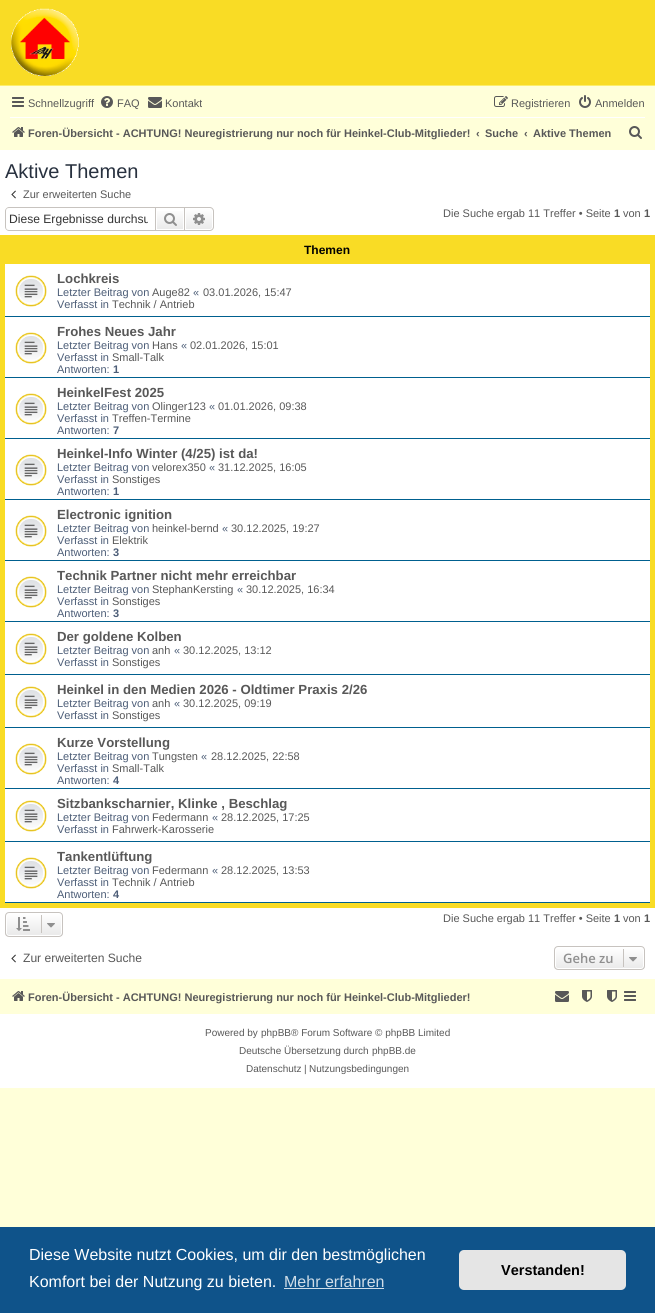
import math
import cairocffi as cairo

surface = cairo.ImageSurface(cairo.FORMAT_RGB24, 655, 1313)
ctx = cairo.Context(surface)
options = cairo.FontOptions()
options.set_hint_metrics(cairo.HINT_METRICS_OFF)
options.set_hint_style(cairo.HINT_STYLE_NONE)
ctx.set_font_options(options)
ctx.set_miter_limit(4)


def rgb(r, g, b):
    ctx.set_source_rgb(r / 255, g / 255, b / 255)


def face(family, size, italic, bold):
    ctx.select_font_face(family, cairo.FONT_SLANT_ITALIC if italic else cairo.FONT_SLANT_NORMAL, cairo.FONT_WEIGHT_BOLD if bold else cairo.FONT_WEIGHT_NORMAL)
    ctx.set_font_size(size)


def label(x, y, s):
    ctx.move_to(x, y)
    ctx.show_text(s)


def rect(x, y, w, h):
    ctx.rectangle(x, y, w, h)
    ctx.fill()


def rrect(x, y, w, h, r):
    ctx.new_sub_path()
    for i, (u, v) in enumerate([(x + w - r, y + h - r), (x + r, y + h - r), (x + r, y + r), (x + w - r, y + r)]):
        ctx.arc(u, v, r, i * math.pi / 2, (i + 1) * math.pi / 2)
    ctx.close_path()


def image(path, x, y, w, h):
    ctx.save()
    ctx.set_source_surface(cairo.ImageSurface.create_from_png(path), x, y)
    ctx.rectangle(x, y, w, h)
    ctx.fill()
    ctx.restore()


rgb(255, 255, 217)
ctx.paint()
rgb(255, 255, 255)
rect(0, 150, 655, 938)
rgb(249, 220, 37)
rect(0, 0, 655, 85)
rgb(252, 238, 108)
rect(0, 85, 655, 1)
image('image0.png', 11, 8, 68, 68)
image('image1.png', 12, 97, 12, 10)
face('Liberation Sans', 11, 0, 0)
rgb(88, 88, 88)
label(28, 107, 'Schnellzugriff')
image('image2.png', 101, 96, 12, 12)
label(117, 107, 'FAQ')
image('image3.png', 148, 97, 14, 11)
label(165, 107, 'Kontakt')
image('image4.png', 494, 96, 14, 11)
label(511, 107, 'Registrieren')
image('image5.png', 579, 95, 12, 13)
label(595, 107, 'Anmelden')
rgb(255, 255, 255)
rect(10, 117, 635, 1)
image('image6.png', 12, 127, 13, 10)
face('Liberation Sans', 11, 0, 1)
rgb(88, 88, 88)
label(28, 137, 'Foren-Übersicht - ACHTUNG! Neuregistrierung nur noch für Heinkel-Club-Mitglieder!')
label(476, 137, '‹')
label(485, 137, 'Suche')
label(524, 137, '‹')
label(533, 137, 'Aktive Themen')
image('image7.png', 629, 126, 13, 13)
face('Liberation Sans', 20, 0, 0)
rgb(40, 49, 63)
label(5, 178, 'Aktive Themen')
image('image8.png', 11, 190, 5, 9)
face('Liberation Sans', 11, 0, 0)
rgb(88, 88, 88)
label(23, 198, 'Zur erweiterten Suche')
rgb(199, 195, 191)
ctx.set_fill_rule(cairo.FILL_RULE_EVEN_ODD)
ctx.new_path()
ctx.move_to(9, 207)
ctx.line_to(155, 207)
ctx.line_to(155, 231)
ctx.line_to(9, 231)
ctx.curve_to(7, 231, 5, 229, 5, 227)
ctx.line_to(5, 211)
ctx.curve_to(5, 209, 7, 207, 9, 207)
ctx.close_path()
ctx.move_to(9, 208)
ctx.line_to(155, 208)
ctx.line_to(155, 230)
ctx.line_to(9, 230)
ctx.curve_to(7, 230, 6, 229, 6, 227)
ctx.line_to(6, 211)
ctx.curve_to(6, 209, 7, 208, 9, 208)
ctx.close_path()
ctx.fill()
ctx.save()
ctx.set_fill_rule(cairo.FILL_RULE_WINDING)
ctx.rectangle(9, 212, 139, 14)
ctx.clip()
face('Liberation Sans', 12.1, 0, 0)
rgb(51, 51, 51)
label(9, 223, 'Diese Ergebnisse durchsu')
ctx.restore()
gradient = cairo.LinearGradient(170, 208, 170, 230)
gradient.add_color_stop_rgba(0, 1, 1, 1, 1)
gradient.add_color_stop_rgba(1, 0.914, 0.914, 0.914, 1)
ctx.set_source(gradient)
rect(157, 211, 26, 18)
ctx.rectangle(155.5, 207.5, 29, 23)
rgb(199, 195, 191)
ctx.set_line_width(1)
ctx.stroke()
image('image9.png', 164, 213, 13, 13)
gradient = cairo.LinearGradient(199, 208, 199, 230)
gradient.add_color_stop_rgba(0, 1, 1, 1, 1)
gradient.add_color_stop_rgba(1, 0.914, 0.914, 0.914, 1)
ctx.set_source(gradient)
ctx.new_path()
ctx.move_to(185.5, 208.5)
ctx.line_to(210, 208.5)
ctx.curve_to(211.5, 208.5, 212.5, 209.5, 212.5, 211)
ctx.line_to(212.5, 227)
ctx.curve_to(212.5, 228.5, 211.5, 229.5, 210, 229.5)
ctx.line_to(185.5, 229.5)
ctx.close_path()
ctx.fill_preserve()
rgb(255, 255, 255)
ctx.stroke()
rgb(199, 195, 191)
ctx.new_path()
ctx.move_to(185, 207)
ctx.line_to(210, 207)
ctx.curve_to(212, 207, 214, 209, 214, 211)
ctx.line_to(214, 227)
ctx.curve_to(214, 229, 212, 231, 210, 231)
ctx.line_to(185, 231)
ctx.close_path()
ctx.move_to(185, 208)
ctx.line_to(210, 208)
ctx.curve_to(211.5, 208, 213, 209.5, 213, 211)
ctx.line_to(213, 227)
ctx.curve_to(213, 228.5, 211.5, 230, 210, 230)
ctx.line_to(185, 230)
ctx.close_path()
ctx.fill()
image('image10.png', 193, 213, 12, 12)
rgb(88, 88, 88)
label(443, 217, 'Die Suche ergab 11 Treffer • Seite')
face('Liberation Sans', 11, 0, 1)
label(614, 217, '1')
face('Liberation Sans', 11, 0, 0)
label(623, 217, 'von')
face('Liberation Sans', 11, 0, 1)
label(644, 217, '1')
rgb(249, 220, 37)
rect(0, 235, 655, 673)
face('Liberation Sans', 12, 0, 1)
rgb(0, 0, 0)
label(304, 254, 'Themen')
rgb(255, 255, 255)
rect(5, 264, 645, 52)
rgb(0, 96, 143)
rect(5, 316, 645, 1)
image('image11.png', 15, 275, 32, 32)
face('Liberation Sans', 13.2, 0, 1)
rgb(88, 88, 88)
label(57, 283, 'Lochkreis')
face('Liberation Sans', 11, 0, 0)
rgb(76, 93, 119)
label(57, 296, 'Letzter Beitrag von')
rgb(88, 88, 88)
label(152, 296, 'Auge82')
rgb(76, 93, 119)
label(193, 296, '«')
rgb(88, 88, 88)
label(203, 296, '03.01.2026, 15:47')
rgb(76, 93, 119)
label(57, 308, 'Verfasst in')
rgb(88, 88, 88)
label(112, 308, 'Technik / Antrieb')
rgb(255, 255, 255)
rect(5, 317, 645, 60)
rgb(0, 96, 143)
rect(5, 377, 645, 1)
image('image11.png', 15, 332, 32, 32)
face('Liberation Sans', 13.2, 0, 1)
rgb(88, 88, 88)
label(57, 336, 'Frohes Neues Jahr')
face('Liberation Sans', 11, 0, 0)
rgb(76, 93, 119)
label(57, 349, 'Letzter Beitrag von')
rgb(88, 88, 88)
label(152, 349, 'Hans')
rgb(76, 93, 119)
label(181, 349, '«')
rgb(88, 88, 88)
label(190, 349, '02.01.2026, 15:01')
rgb(76, 93, 119)
label(57, 361, 'Verfasst in')
rgb(88, 88, 88)
label(112, 361, 'Small-Talk')
rgb(76, 93, 119)
label(57, 373, 'Antworten:')
face('Liberation Sans', 11, 0, 1)
label(113, 373, '1')
rgb(255, 255, 255)
rect(5, 378, 645, 60)
rgb(0, 96, 143)
rect(5, 438, 645, 1)
image('image11.png', 15, 393, 32, 32)
face('Liberation Sans', 13.2, 0, 1)
rgb(88, 88, 88)
label(57, 397, 'HeinkelFest 2025')
face('Liberation Sans', 11, 0, 0)
rgb(76, 93, 119)
label(57, 410, 'Letzter Beitrag von')
rgb(88, 88, 88)
label(152, 410, 'Olinger123')
rgb(76, 93, 119)
label(209, 410, '«')
rgb(88, 88, 88)
label(218, 410, '01.01.2026, 09:38')
rgb(76, 93, 119)
label(57, 422, 'Verfasst in')
rgb(88, 88, 88)
label(112, 422, 'Treffen-Termine')
rgb(76, 93, 119)
label(57, 434, 'Antworten:')
face('Liberation Sans', 11, 0, 1)
label(113, 434, '7')
rgb(255, 255, 255)
rect(5, 439, 645, 60)
rgb(0, 96, 143)
rect(5, 499, 645, 1)
image('image11.png', 15, 454, 32, 32)
face('Liberation Sans', 13.2, 0, 1)
rgb(88, 88, 88)
label(57, 458, 'Heinkel-Info Winter (4/25) ist da!')
face('Liberation Sans', 11, 0, 0)
rgb(76, 93, 119)
label(57, 471, 'Letzter Beitrag von')
rgb(88, 88, 88)
label(152, 471, 'velorex350')
rgb(76, 93, 119)
label(209, 471, '«')
rgb(88, 88, 88)
label(218, 471, '31.12.2025, 16:05')
rgb(76, 93, 119)
label(57, 483, 'Verfasst in')
rgb(88, 88, 88)
label(112, 483, 'Sonstiges')
rgb(76, 93, 119)
label(57, 495, 'Antworten:')
face('Liberation Sans', 11, 0, 1)
label(113, 495, '1')
rgb(255, 255, 255)
rect(5, 500, 645, 60)
rgb(0, 96, 143)
rect(5, 560, 645, 1)
image('image11.png', 15, 515, 32, 32)
face('Liberation Sans', 13.2, 0, 1)
rgb(88, 88, 88)
label(57, 519, 'Electronic ignition')
face('Liberation Sans', 11, 0, 0)
rgb(76, 93, 119)
label(57, 532, 'Letzter Beitrag von')
rgb(88, 88, 88)
label(152, 532, 'heinkel-bernd')
rgb(76, 93, 119)
label(222, 532, '«')
rgb(88, 88, 88)
label(231, 532, '30.12.2025, 19:27')
rgb(76, 93, 119)
label(57, 544, 'Verfasst in')
rgb(88, 88, 88)
label(112, 544, 'Elektrik')
rgb(76, 93, 119)
label(57, 556, 'Antworten:')
face('Liberation Sans', 11, 0, 1)
label(113, 556, '3')
rgb(255, 255, 255)
rect(5, 561, 645, 60)
rgb(0, 96, 143)
rect(5, 621, 645, 1)
image('image11.png', 15, 576, 32, 32)
face('Liberation Sans', 13.2, 0, 1)
rgb(88, 88, 88)
label(57, 580, 'Technik Partner nicht mehr erreichbar')
face('Liberation Sans', 11, 0, 0)
rgb(76, 93, 119)
label(57, 593, 'Letzter Beitrag von')
rgb(88, 88, 88)
label(152, 593, 'StephanKersting')
rgb(76, 93, 119)
label(237, 593, '«')
rgb(88, 88, 88)
label(246, 593, '30.12.2025, 16:34')
rgb(76, 93, 119)
label(57, 605, 'Verfasst in')
rgb(88, 88, 88)
label(112, 605, 'Sonstiges')
rgb(76, 93, 119)
label(57, 617, 'Antworten:')
face('Liberation Sans', 11, 0, 1)
label(113, 617, '3')
rgb(255, 255, 255)
rect(5, 622, 645, 52)
rgb(0, 96, 143)
rect(5, 674, 645, 1)
image('image11.png', 15, 633, 32, 32)
face('Liberation Sans', 13.2, 0, 1)
rgb(88, 88, 88)
label(57, 641, 'Der goldene Kolben')
face('Liberation Sans', 11, 0, 0)
rgb(76, 93, 119)
label(57, 654, 'Letzter Beitrag von')
rgb(88, 88, 88)
label(152, 654, 'anh')
rgb(76, 93, 119)
label(174, 654, '«')
rgb(88, 88, 88)
label(183, 654, '30.12.2025, 13:12')
rgb(76, 93, 119)
label(57, 666, 'Verfasst in')
rgb(88, 88, 88)
label(112, 666, 'Sonstiges')
rgb(255, 255, 255)
rect(5, 675, 645, 52)
rgb(0, 96, 143)
rect(5, 727, 645, 1)
image('image11.png', 15, 686, 32, 32)
face('Liberation Sans', 13.2, 0, 1)
rgb(88, 88, 88)
label(57, 694, 'Heinkel in den Medien 2026 - Oldtimer Praxis 2/26')
face('Liberation Sans', 11, 0, 0)
rgb(76, 93, 119)
label(57, 707, 'Letzter Beitrag von')
rgb(88, 88, 88)
label(152, 707, 'anh')
rgb(76, 93, 119)
label(174, 707, '«')
rgb(88, 88, 88)
label(183, 707, '30.12.2025, 09:19')
rgb(76, 93, 119)
label(57, 719, 'Verfasst in')
rgb(88, 88, 88)
label(112, 719, 'Sonstiges')
rgb(255, 255, 255)
rect(5, 728, 645, 60)
rgb(0, 96, 143)
rect(5, 788, 645, 1)
image('image11.png', 15, 743, 32, 32)
face('Liberation Sans', 13.2, 0, 1)
rgb(88, 88, 88)
label(57, 747, 'Kurze Vorstellung')
face('Liberation Sans', 11, 0, 0)
rgb(76, 93, 119)
label(57, 760, 'Letzter Beitrag von')
rgb(88, 88, 88)
label(152, 760, 'Tungsten')
rgb(76, 93, 119)
label(201, 760, '«')
rgb(88, 88, 88)
label(211, 760, '28.12.2025, 22:58')
rgb(76, 93, 119)
label(57, 772, 'Verfasst in')
rgb(88, 88, 88)
label(112, 772, 'Small-Talk')
rgb(76, 93, 119)
label(57, 784, 'Antworten:')
face('Liberation Sans', 11, 0, 1)
label(113, 784, '4')
rgb(255, 255, 255)
rect(5, 789, 645, 52)
rgb(0, 96, 143)
rect(5, 841, 645, 1)
image('image11.png', 15, 800, 32, 32)
face('Liberation Sans', 13.2, 0, 1)
rgb(88, 88, 88)
label(57, 808, 'Sitzbankscharnier, Klinke , Beschlag')
face('Liberation Sans', 11, 0, 0)
rgb(76, 93, 119)
label(57, 821, 'Letzter Beitrag von')
rgb(88, 88, 88)
label(152, 821, 'Federmann')
rgb(76, 93, 119)
label(212, 821, '«')
rgb(88, 88, 88)
label(221, 821, '28.12.2025, 17:25')
rgb(76, 93, 119)
label(57, 833, 'Verfasst in')
rgb(88, 88, 88)
label(112, 833, 'Fahrwerk-Karosserie')
rgb(255, 255, 255)
rect(5, 842, 645, 60)
rgb(0, 96, 143)
rect(5, 902, 645, 1)
image('image11.png', 15, 857, 32, 32)
face('Liberation Sans', 13.2, 0, 1)
rgb(88, 88, 88)
label(57, 861, 'Tankentlüftung')
face('Liberation Sans', 11, 0, 0)
rgb(76, 93, 119)
label(57, 874, 'Letzter Beitrag von')
rgb(88, 88, 88)
label(152, 874, 'Federmann')
rgb(76, 93, 119)
label(212, 874, '«')
rgb(88, 88, 88)
label(221, 874, '28.12.2025, 13:53')
rgb(76, 93, 119)
label(57, 886, 'Verfasst in')
rgb(88, 88, 88)
label(112, 886, 'Technik / Antrieb')
rgb(76, 93, 119)
label(57, 898, 'Antworten:')
face('Liberation Sans', 11, 0, 1)
label(113, 898, '4')
ctx.save()
ctx.set_fill_rule(cairo.FILL_RULE_WINDING)
rrect(5, 912, 58, 25, 4)
ctx.clip()
gradient = cairo.LinearGradient(34, 913, 34, 936)
gradient.add_color_stop_rgba(0, 1, 1, 1, 1)
gradient.add_color_stop_rgba(1, 0.914, 0.914, 0.914, 1)
ctx.set_source(gradient)
rect(5, 913, 58, 23)
ctx.restore()
rrect(6.5, 913.5, 55, 22, 2.5)
rgb(255, 255, 255)
ctx.stroke()
rrect(5.5, 912.5, 57, 24, 3.5)
rgb(199, 195, 191)
ctx.stroke()
image('image12.png', 16, 917, 14, 14)
rect(41, 915, 1, 18)
image('image13.png', 47, 923, 8, 5)
face('Liberation Sans', 11, 0, 0)
rgb(88, 88, 88)
label(443, 922, 'Die Suche ergab 11 Treffer • Seite')
face('Liberation Sans', 11, 0, 1)
label(614, 922, '1')
face('Liberation Sans', 11, 0, 0)
label(623, 922, 'von')
face('Liberation Sans', 11, 0, 1)
label(644, 922, '1')
image('image8.png', 11, 954, 5, 9)
face('Liberation Sans', 12.1, 0, 0)
label(23, 962, 'Zur erweiterten Suche')
ctx.save()
ctx.set_fill_rule(cairo.FILL_RULE_WINDING)
rrect(554, 946, 91, 24, 4)
ctx.clip()
gradient = cairo.LinearGradient(600, 947, 600, 969)
gradient.add_color_stop_rgba(0, 1, 1, 1, 1)
gradient.add_color_stop_rgba(1, 0.914, 0.914, 0.914, 1)
ctx.set_source(gradient)
rect(554, 947, 91, 22)
ctx.restore()
rrect(555.5, 947.5, 88, 21, 2.5)
rgb(255, 255, 255)
ctx.stroke()
rrect(554.5, 946.5, 90, 23, 3.5)
rgb(199, 195, 191)
ctx.stroke()
face('Open Sans SemiBold', 13, 0, 0)
rgb(143, 143, 143)
label(563, 963, 'Gehe zu')
rgb(199, 195, 191)
rect(623, 949, 1, 18)
image('image13.png', 629, 957, 8, 5)
rgb(255, 255, 217)
rect(0, 979, 655, 35)
image('image14.png', 12, 991, 13, 10)
face('Liberation Sans', 11, 0, 1)
rgb(88, 88, 88)
label(28, 1001, 'Foren-Übersicht - ACHTUNG! Neuregistrierung nur noch für Heinkel-Club-Mitglieder!')
image('image15.png', 555, 991, 14, 11)
image('image16.png', 582, 990, 10, 12)
image('image16.png', 607, 990, 10, 12)
image('image17.png', 624, 991, 12, 10)
face('Liberation Sans', 10, 0, 0)
label(205, 1036, 'Powered by')
label(261, 1036, 'phpBB')
label(291, 1036, '® Forum Software © phpBB Limited')
label(239, 1054, 'Deutsche Übersetzung durch')
label(372, 1054, 'phpBB.de')
label(246, 1072, 'Datenschutz')
label(304, 1072, '|')
label(309, 1072, 'Nutzungsbedingungen')
rgb(15, 83, 138)
rect(0, 1227, 655, 86)
face('Liberation Sans', 16, 0, 0)
rgb(255, 255, 255)
label(29, 1260, 'Diese Website nutzt Cookies, um dir den bestmöglichen')
label(29, 1287, 'Komfort bei der Nutzung zu bieten.')
rgb(207, 221, 232)
label(284, 1287, 'Mehr erfahren')
rect(284, 1288, 100, 1)
rgb(229, 229, 229)
rrect(459, 1250, 167, 40, 5)
ctx.fill()
face('Liberation Sans', 14.5, 0, 1)
rgb(0, 0, 0)
label(501, 1275, 'Verstanden!')
surface.write_to_png('render.png')
